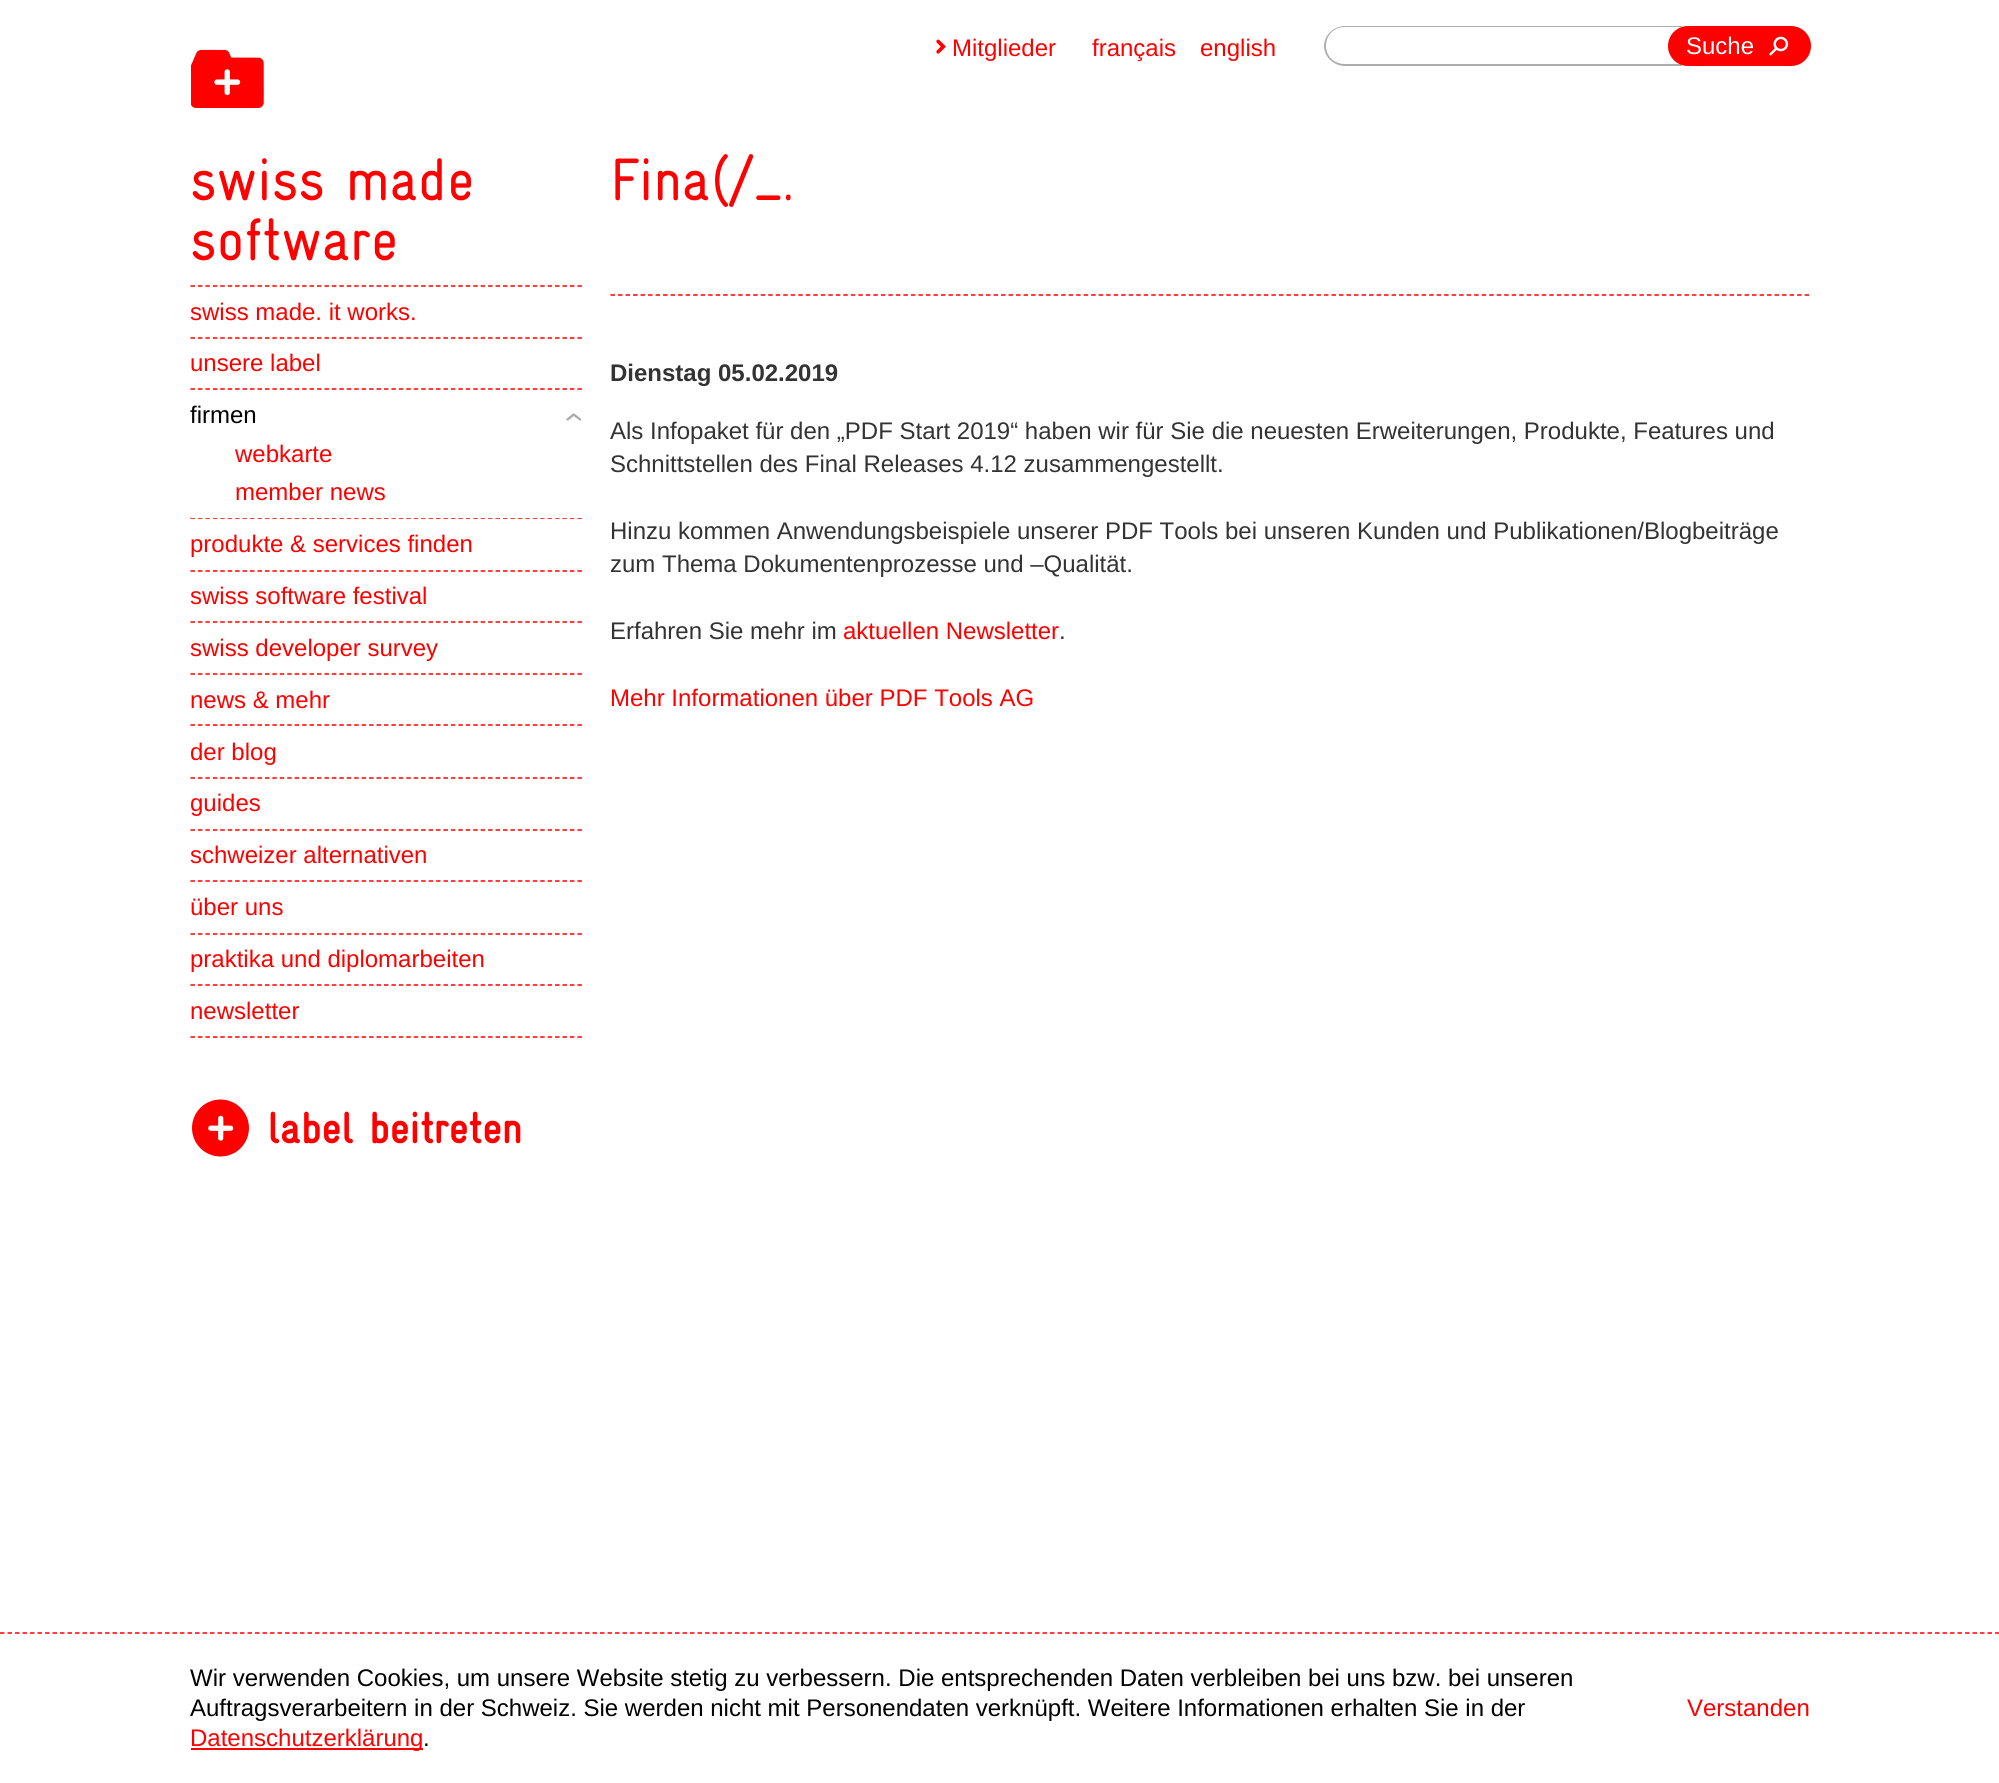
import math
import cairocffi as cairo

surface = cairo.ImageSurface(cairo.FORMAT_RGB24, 1999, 1783)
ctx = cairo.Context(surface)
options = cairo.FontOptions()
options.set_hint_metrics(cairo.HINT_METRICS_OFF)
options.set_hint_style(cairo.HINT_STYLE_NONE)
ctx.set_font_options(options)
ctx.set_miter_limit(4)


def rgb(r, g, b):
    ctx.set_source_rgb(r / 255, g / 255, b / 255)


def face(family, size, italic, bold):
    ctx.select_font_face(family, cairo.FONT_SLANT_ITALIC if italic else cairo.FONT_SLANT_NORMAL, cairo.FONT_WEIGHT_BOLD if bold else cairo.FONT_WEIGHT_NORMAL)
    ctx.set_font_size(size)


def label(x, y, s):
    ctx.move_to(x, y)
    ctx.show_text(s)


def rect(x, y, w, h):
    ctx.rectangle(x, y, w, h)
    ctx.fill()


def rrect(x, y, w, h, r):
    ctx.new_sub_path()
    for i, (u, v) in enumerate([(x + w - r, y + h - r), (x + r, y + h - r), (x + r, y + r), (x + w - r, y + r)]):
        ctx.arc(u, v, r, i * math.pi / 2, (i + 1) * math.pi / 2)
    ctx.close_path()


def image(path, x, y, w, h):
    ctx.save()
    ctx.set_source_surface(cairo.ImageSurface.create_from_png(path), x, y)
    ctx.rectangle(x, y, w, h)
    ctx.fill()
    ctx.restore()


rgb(255, 255, 255)
ctx.paint()
image('image0.png', 191, 49, 73, 59)
face('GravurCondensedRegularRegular', 60, 0, 0)
rgb(255, 0, 0)
label(190, 200, 'swiss made')
label(190, 260, 'software')
ctx.new_path()
ctx.move_to(190.5, 1037)
ctx.line_to(582, 1037)
ctx.set_line_width(1.5)
ctx.set_dash([4.5, 2.94])
ctx.stroke()
ctx.new_path()
ctx.move_to(190.5, 286)
ctx.line_to(582, 286)
ctx.stroke()
face('Liberation Sans', 24, 0, 0)
label(190, 320, 'swiss made. it works.')
ctx.new_path()
ctx.move_to(190.5, 338)
ctx.line_to(582, 338)
ctx.stroke()
label(190, 371, 'unsere label')
ctx.new_path()
ctx.move_to(190.5, 389)
ctx.line_to(582, 389)
ctx.stroke()
rgb(0, 0, 0)
label(190, 423, 'firmen')
face('GravurCondensedRegularRegular', 30, 0, 0)
rgb(170, 170, 170)
ctx.save()
ctx.translate(581, 422)
ctx.rotate(-90 * math.pi / 180)
label(0, 0, '>')
ctx.restore()
ctx.new_path()
ctx.move_to(190.5, 518)
ctx.line_to(582, 518)
rgb(255, 0, 0)
ctx.stroke()
rgb(255, 255, 255)
rect(191, 517, 391, 1)
face('Liberation Sans', 24, 0, 0)
rgb(255, 0, 0)
label(235, 462, 'webkarte')
label(235, 500, 'member news')
label(190, 552, 'produkte & services finden')
ctx.new_path()
ctx.move_to(190.5, 571)
ctx.line_to(582, 571)
ctx.stroke()
label(190, 604, 'swiss software festival')
ctx.new_path()
ctx.move_to(190.5, 622)
ctx.line_to(582, 622)
ctx.stroke()
label(190, 656, 'swiss developer survey')
ctx.new_path()
ctx.move_to(190.5, 674)
ctx.line_to(582, 674)
ctx.stroke()
label(190, 708, 'news & mehr')
ctx.new_path()
ctx.move_to(190.5, 725)
ctx.line_to(582, 725)
ctx.stroke()
ctx.save()
ctx.rectangle(191, 726, 85, 51)
ctx.clip()
label(190, 760, 'der blog')
ctx.restore()
ctx.new_path()
ctx.move_to(190.5, 778)
ctx.line_to(582, 778)
ctx.stroke()
ctx.save()
ctx.rectangle(191, 779, 70, 51)
ctx.clip()
label(190, 811, 'guides')
ctx.restore()
ctx.new_path()
ctx.move_to(190.5, 830)
ctx.line_to(582, 830)
ctx.stroke()
label(190, 863, 'schweizer alternativen')
ctx.new_path()
ctx.move_to(190.5, 881)
ctx.line_to(582, 881)
ctx.stroke()
label(190, 915, 'über uns')
ctx.new_path()
ctx.move_to(190.5, 934)
ctx.line_to(582, 934)
ctx.stroke()
label(190, 967, 'praktika und diplomarbeiten')
ctx.new_path()
ctx.move_to(190.5, 985)
ctx.line_to(582, 985)
ctx.stroke()
label(190, 1019, 'newsletter')
image('image1.png', 192, 1099, 57, 58)
face('GravurCondensedRegularRegular', 43.25, 0, 1)
label(267, 1143, 'label beitreten')
image('image2.png', 936, 39, 10, 15)
face('Liberation Sans', 24, 0, 0)
label(952, 56, 'Mitglieder')
label(1092, 56, 'français')
label(1200, 56, 'english')
rgb(172, 173, 175)
ctx.set_fill_rule(cairo.FILL_RULE_EVEN_ODD)
ctx.new_path()
ctx.move_to(1345, 26)
ctx.line_to(1682, 26)
ctx.line_to(1682, 66)
ctx.line_to(1345, 66)
ctx.curve_to(1334, 66, 1324, 57, 1324, 46)
ctx.curve_to(1324, 35, 1334, 26, 1345, 26)
ctx.close_path()
ctx.move_to(1345, 27)
ctx.line_to(1682, 27)
ctx.line_to(1682, 64)
ctx.line_to(1345, 64)
ctx.curve_to(1334, 64, 1326, 56, 1326, 46)
ctx.curve_to(1326, 35, 1334, 27, 1345, 27)
ctx.close_path()
ctx.fill()
rgb(255, 0, 0)
rrect(1668, 26, 143, 40, 20)
ctx.fill()
rgb(255, 255, 255)
label(1686, 54, 'Suche')
image('image3.png', 1769, 36, 20, 20)
ctx.new_path()
ctx.move_to(610.5, 295)
ctx.line_to(1810.5, 295)
rgb(255, 0, 0)
ctx.set_dash([4.5, 3.01])
ctx.stroke()
face('GravurCondensedRegularRegular', 60, 0, 0)
label(610, 200, 'Fina(/_.')
face('Liberation Sans', 24, 0, 1)
rgb(51, 51, 52)
label(610, 381, 'Dienstag 05.02.2019')
face('Liberation Sans', 24, 0, 0)
label(610, 439, 'Als Infopaket für den „PDF Start 2019“ haben wir für Sie die neuesten Erweiterungen, Produkte, Features und')
label(610, 472, 'Schnittstellen des Final Releases 4.12 zusammengestellt.')
label(610, 539, 'Hinzu kommen Anwendungsbeispiele unserer PDF Tools bei unseren Kunden und Publikationen/Blogbeiträge')
label(610, 572, 'zum Thema Dokumentenprozesse und –Qualität.')
label(610, 639, 'Erfahren Sie mehr im')
rgb(255, 0, 0)
label(843, 639, 'aktuellen Newsletter')
rgb(51, 51, 52)
label(1059, 639, '.')
rgb(255, 0, 0)
label(610, 706, 'Mehr Informationen über PDF Tools AG')
ctx.new_path()
ctx.move_to(0, 1633)
ctx.line_to(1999.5, 1633)
ctx.set_dash([4.5, 3])
ctx.stroke()
rgb(0, 0, 0)
label(190, 1686, 'Wir verwenden Cookies, um unsere Website stetig zu verbessern. Die entsprechenden Daten verbleiben bei uns bzw. bei unseren')
label(190, 1716, 'Auftragsverarbeitern in der Schweiz. Sie werden nicht mit Personendaten verknüpft. Weitere Informationen erhalten Sie in der')
rgb(255, 0, 0)
rect(191, 1748, 232, 2)
label(190, 1746, 'Datenschutzerklärung')
rgb(0, 0, 0)
label(423, 1746, '.')
rgb(255, 0, 0)
label(1687, 1716, 'Verstanden')
surface.write_to_png('render.png')
